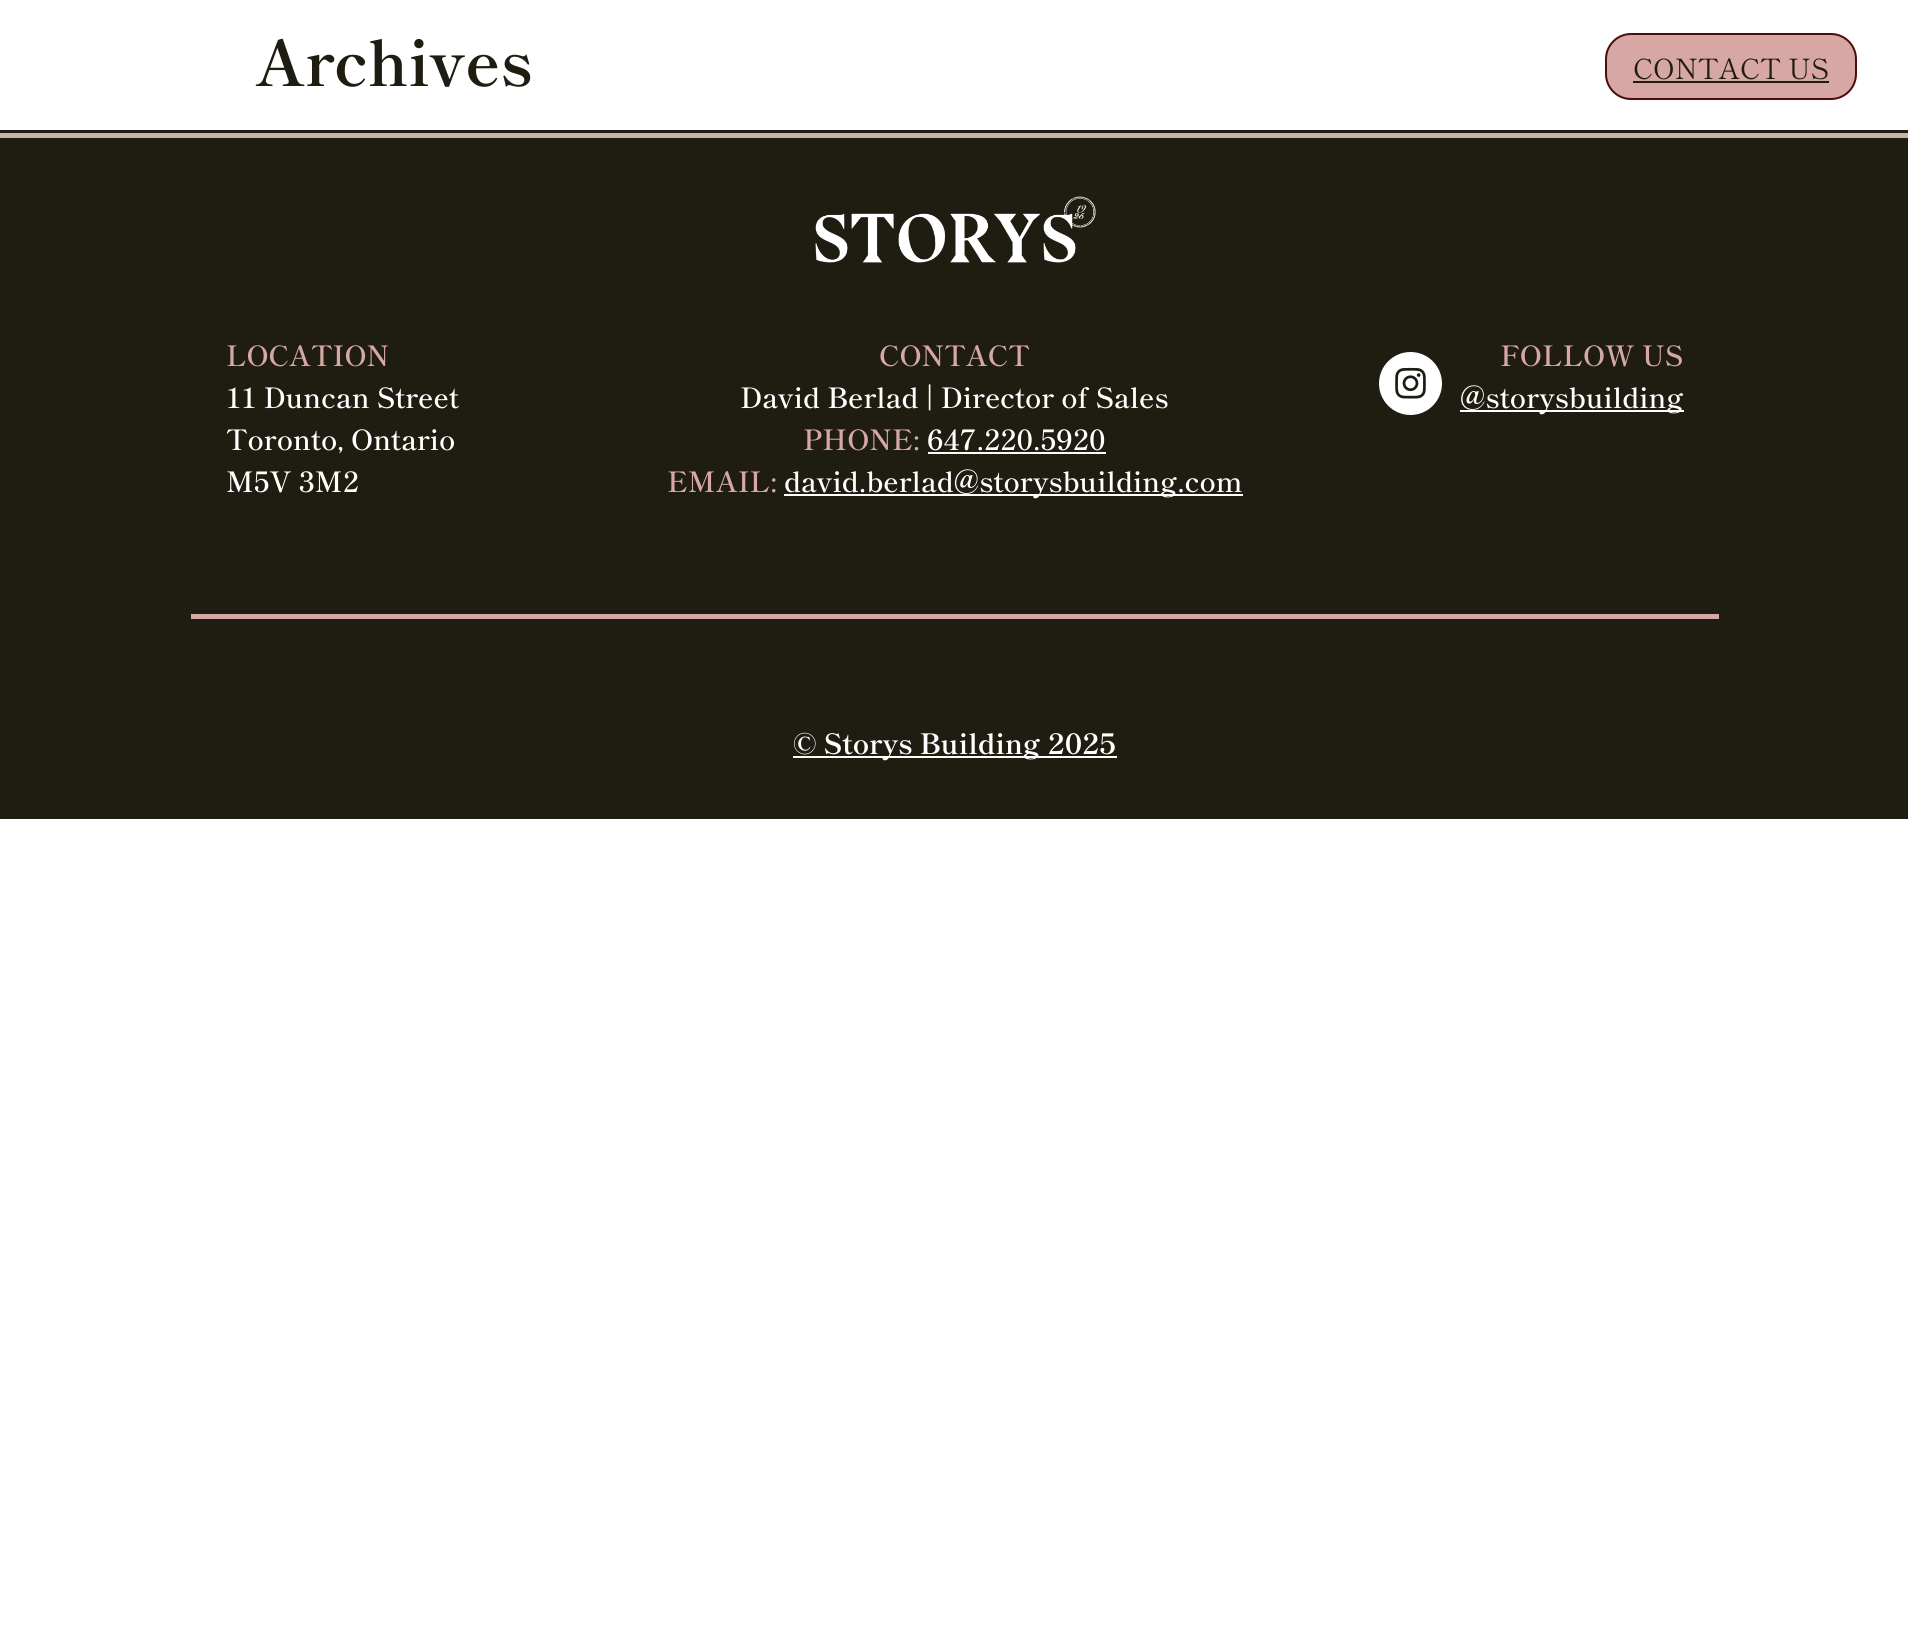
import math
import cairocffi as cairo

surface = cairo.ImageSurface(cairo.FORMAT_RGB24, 1908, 1644)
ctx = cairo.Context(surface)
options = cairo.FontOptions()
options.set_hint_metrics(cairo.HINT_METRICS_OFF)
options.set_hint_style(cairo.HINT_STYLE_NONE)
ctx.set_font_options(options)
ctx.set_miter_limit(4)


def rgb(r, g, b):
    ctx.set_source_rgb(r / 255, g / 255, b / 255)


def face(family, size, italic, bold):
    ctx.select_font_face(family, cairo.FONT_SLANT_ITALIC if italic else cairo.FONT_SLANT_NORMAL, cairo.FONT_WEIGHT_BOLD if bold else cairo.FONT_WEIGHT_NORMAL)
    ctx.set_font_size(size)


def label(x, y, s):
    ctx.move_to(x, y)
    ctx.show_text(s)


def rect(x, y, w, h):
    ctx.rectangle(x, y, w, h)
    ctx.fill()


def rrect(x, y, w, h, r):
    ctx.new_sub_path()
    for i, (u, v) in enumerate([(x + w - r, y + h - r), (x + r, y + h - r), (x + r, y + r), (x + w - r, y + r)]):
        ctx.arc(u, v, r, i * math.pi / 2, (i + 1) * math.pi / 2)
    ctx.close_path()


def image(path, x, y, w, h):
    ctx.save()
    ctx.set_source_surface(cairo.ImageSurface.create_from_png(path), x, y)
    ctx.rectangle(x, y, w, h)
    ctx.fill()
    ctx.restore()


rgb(255, 255, 255)
ctx.paint()
face('Shippori Mincho', 63, 0, 1)
rgb(31, 28, 18)
label(255, 86, 'Archives')
rect(0, 130, 1908, 689)
rgb(204, 179, 168)
rect(0, 133, 1908, 5)
rgb(214, 167, 163)
rrect(1606, 34, 250, 65, 25)
ctx.fill_preserve()
rgb(74, 14, 13)
ctx.stroke()
face('Shippori Mincho', 28, 0, 0)
rgb(31, 28, 18)
label(1633, 79, 'CONTACT US')
rect(1633, 81, 196, 2)
image('image0.png', 815, 196, 281, 67)
face('Shippori Mincho SemiBold', 28, 0, 0)
rgb(214, 167, 163)
label(226, 366, 'LOCATION')
rgb(255, 255, 255)
label(226, 408, '11 Duncan Street')
label(226, 450, 'Toronto, Ontario')
label(226, 492, 'M5V 3M2')
rgb(214, 167, 163)
label(879, 366, 'CONTACT')
rgb(255, 255, 255)
label(740, 408, 'David Berlad | Director of Sales')
rgb(214, 167, 163)
label(803, 450, 'PHONE:')
rgb(255, 255, 255)
label(927, 450, '647.220.5920')
rect(928, 452, 178, 2)
rgb(214, 167, 163)
label(667, 492, 'EMAIL:')
rgb(255, 255, 255)
rect(784, 494, 459, 2)
label(784, 492, 'david.berlad@storysbuilding.com')
ctx.new_path()
ctx.arc(1410.5, 383.5, 31.5, 0, 2 * math.pi)
ctx.fill()
image('image1.png', 1395, 367, 31, 32)
rgb(214, 167, 163)
label(1500, 366, 'FOLLOW US')
rgb(255, 255, 255)
rect(1460, 410, 224, 2)
label(1460, 408, '@storysbuilding')
rgb(214, 167, 163)
rect(191, 614, 1528, 5)
rgb(255, 255, 255)
rect(793, 756, 324, 2)
face('Shippori Mincho', 28, 0, 1)
label(793, 754, '© Storys Building 2025')
surface.write_to_png('render.png')
